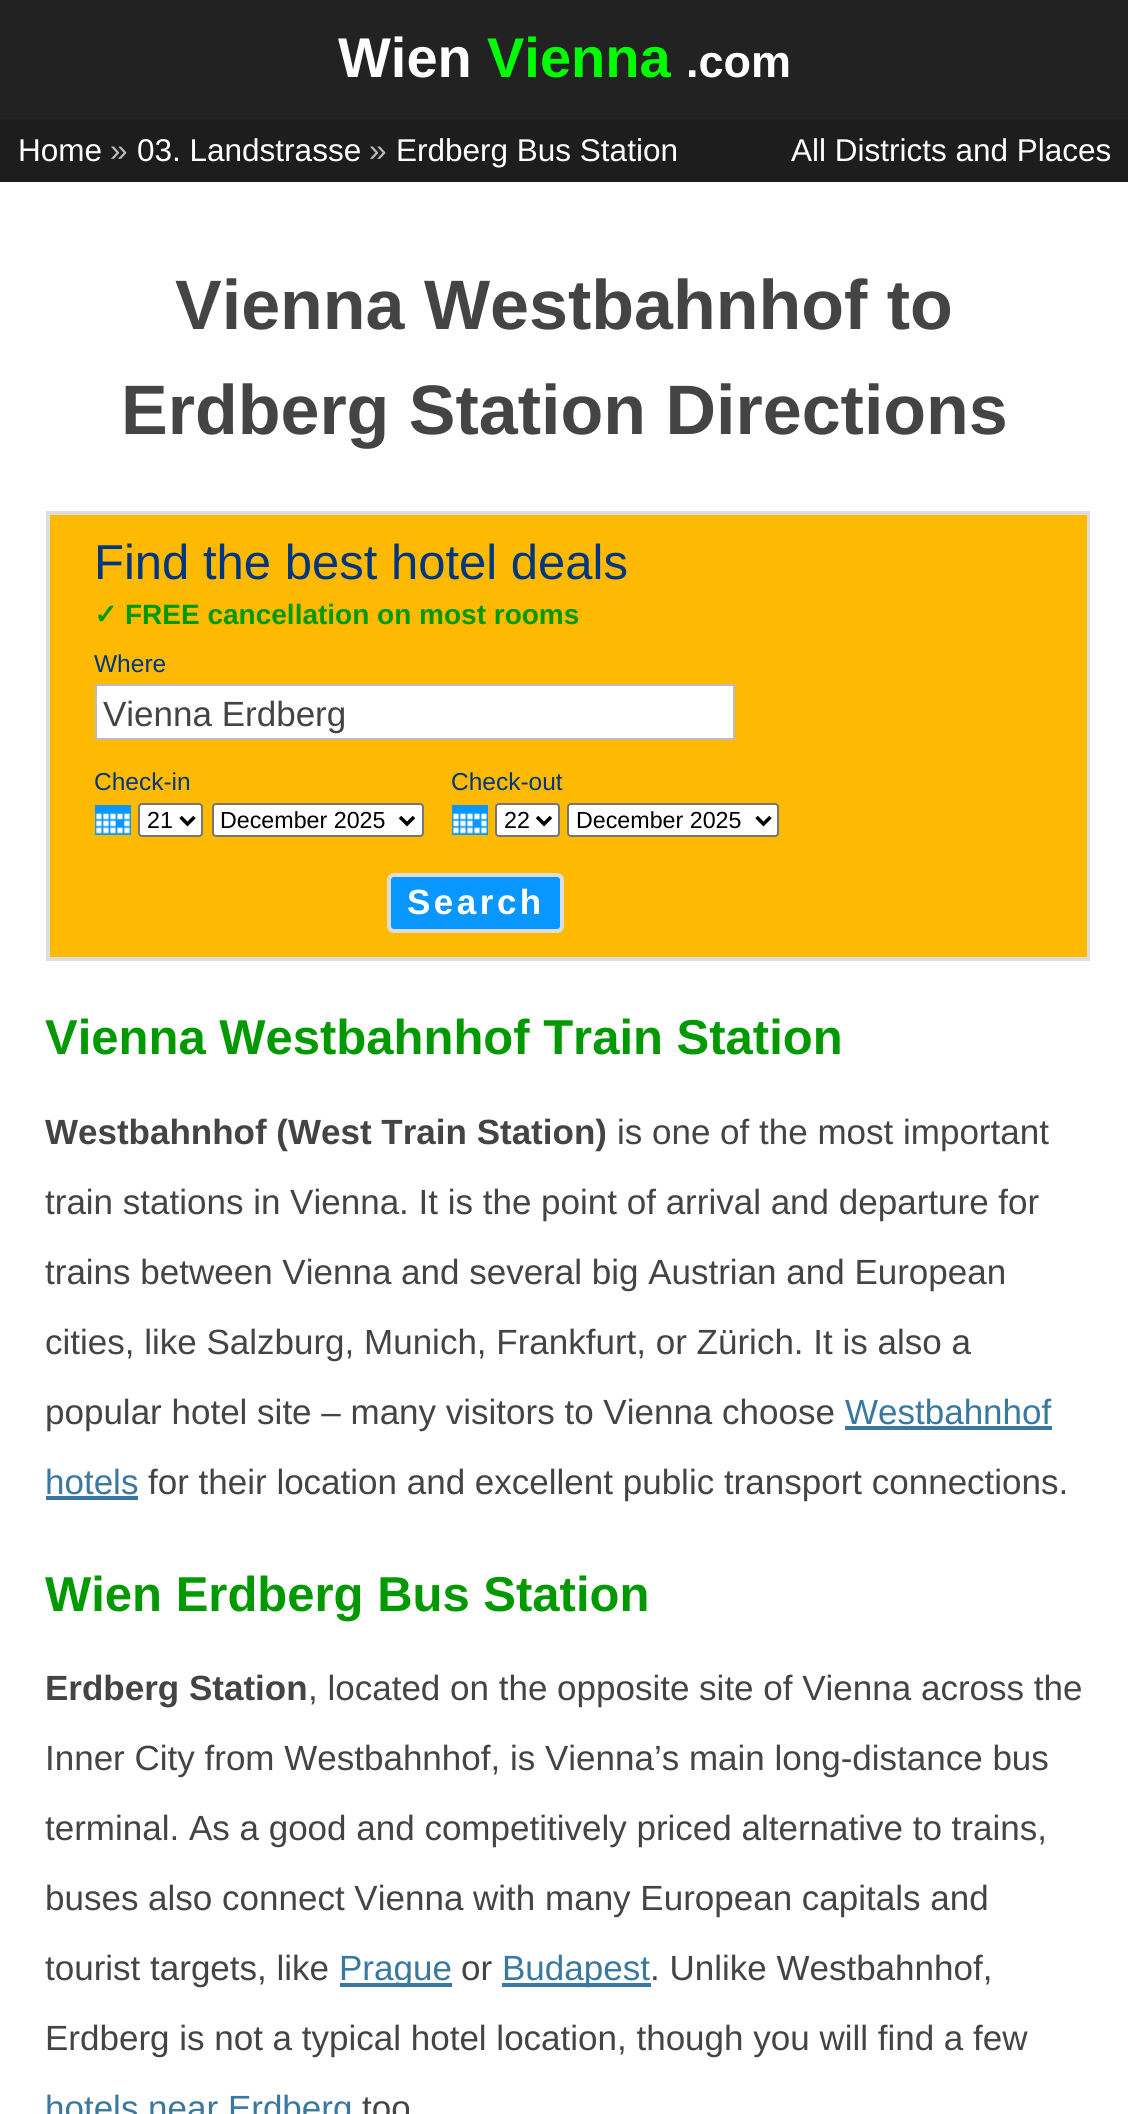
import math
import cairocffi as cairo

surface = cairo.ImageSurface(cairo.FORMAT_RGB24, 1128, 2114)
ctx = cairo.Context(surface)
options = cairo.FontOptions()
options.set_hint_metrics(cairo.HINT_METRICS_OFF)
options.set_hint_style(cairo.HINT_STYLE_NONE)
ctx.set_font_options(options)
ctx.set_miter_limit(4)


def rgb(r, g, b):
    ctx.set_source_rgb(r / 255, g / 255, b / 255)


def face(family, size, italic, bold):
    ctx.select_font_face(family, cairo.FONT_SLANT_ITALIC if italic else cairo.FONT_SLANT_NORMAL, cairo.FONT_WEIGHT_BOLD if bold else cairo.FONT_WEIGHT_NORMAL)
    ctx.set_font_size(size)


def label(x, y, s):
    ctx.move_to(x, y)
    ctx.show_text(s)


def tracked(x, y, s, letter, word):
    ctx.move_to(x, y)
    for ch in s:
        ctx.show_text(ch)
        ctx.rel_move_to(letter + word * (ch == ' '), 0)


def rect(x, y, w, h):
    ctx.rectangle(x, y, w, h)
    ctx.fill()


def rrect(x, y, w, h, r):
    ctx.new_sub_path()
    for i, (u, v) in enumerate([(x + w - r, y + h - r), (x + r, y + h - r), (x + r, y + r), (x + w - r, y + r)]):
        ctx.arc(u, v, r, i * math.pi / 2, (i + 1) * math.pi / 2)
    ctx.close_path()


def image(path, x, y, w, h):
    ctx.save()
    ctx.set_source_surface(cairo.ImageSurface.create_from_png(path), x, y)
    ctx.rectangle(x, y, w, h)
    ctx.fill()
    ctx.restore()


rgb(255, 255, 255)
ctx.paint()
rgb(34, 34, 34)
rect(0, 0, 1128, 119)
face('Liberation Sans', 56, 0, 1)
rgb(255, 255, 255)
label(338, 77, 'Wien')
rgb(0, 255, 0)
label(487, 77, 'Vienna')
face('Liberation Sans', 45, 0, 1)
rgb(255, 255, 255)
label(686, 77, '.com')
rgb(29, 29, 29)
rect(0, 119, 1128, 63)
face('Liberation Sans', 31.5, 0, 0)
rgb(255, 255, 255)
label(18, 161, 'Home')
rgb(187, 187, 187)
label(110, 161, '»')
rgb(255, 255, 255)
label(137, 161, '03. Landstrasse')
rgb(187, 187, 187)
label(369, 161, '»')
rgb(255, 255, 255)
label(396, 161, 'Erdberg Bus Station')
label(791, 161, 'All Districts and Places')
face('Liberation Sans', 70, 0, 1)
rgb(68, 68, 68)
label(175, 329, 'Vienna Westbahnhof to')
label(121, 434, 'Erdberg Station Directions')
rgb(254, 186, 2)
rect(50, 515, 31, 442)
ctx.rectangle(48, 513, 1040, 446)
rgb(221, 221, 221)
ctx.set_line_width(4)
ctx.stroke()
rgb(254, 186, 2)
rect(81, 515, 1006, 442)
face('Liberation Sans', 49, 0, 0)
rgb(0, 53, 128)
label(94, 579, 'Find the best hotel deals')
face('DejaVu Sans', 28, 0, 1)
rgb(0, 153, 0)
label(94, 624, '✓')
face('Liberation Sans', 28, 0, 1)
label(125, 624, 'FREE cancellation on most rooms')
face('Liberation Sans', 24.5, 0, 0)
rgb(0, 53, 128)
label(94, 672, 'Where')
rgb(255, 255, 255)
ctx.rectangle(96, 685, 638, 54)
ctx.fill_preserve()
rgb(187, 187, 187)
ctx.set_line_width(2)
ctx.stroke()
face('Liberation Sans', 35, 0, 0)
rgb(68, 68, 68)
label(103, 726, 'Vienna Erdberg')
face('Liberation Sans', 24.5, 0, 0)
rgb(0, 53, 128)
label(94, 790, 'Check-in')
rgb(8, 150, 255)
rect(95, 805, 36, 30)
rgb(255, 255, 255)
rrect(139, 804, 63, 32, 3)
ctx.fill_preserve()
rgb(118, 118, 118)
ctx.stroke()
ctx.new_path()
ctx.move_to(180.5, 817)
ctx.line_to(187.5, 824)
ctx.line_to(194.5, 817)
rgb(0, 0, 0)
ctx.set_line_width(3.5)
ctx.stroke()
face('Liberation Sans', 23.25, 0, 0)
label(147, 828, '21')
rgb(255, 255, 255)
rrect(213, 804, 210, 32, 3)
ctx.fill_preserve()
rgb(118, 118, 118)
ctx.set_line_width(2)
ctx.stroke()
ctx.new_path()
ctx.move_to(400, 817)
ctx.line_to(407, 824)
ctx.line_to(414, 817)
rgb(0, 0, 0)
ctx.set_line_width(3.5)
ctx.stroke()
label(220, 828, 'December 2025')
image('image0.png', 95, 813, 35, 21)
face('Liberation Sans', 24.5, 0, 0)
rgb(0, 53, 128)
label(451, 790, 'Check-out')
rgb(8, 150, 255)
rect(452, 805, 36, 30)
rgb(255, 255, 255)
rrect(496, 804, 63, 32, 3)
ctx.fill_preserve()
rgb(118, 118, 118)
ctx.set_line_width(2)
ctx.stroke()
ctx.new_path()
ctx.move_to(537, 817)
ctx.line_to(544, 824)
ctx.line_to(551, 817)
rgb(0, 0, 0)
ctx.set_line_width(3.5)
ctx.stroke()
face('Liberation Sans', 23.25, 0, 0)
label(504, 828, '22')
rgb(255, 255, 255)
rrect(568, 804, 210, 32, 3)
ctx.fill_preserve()
rgb(118, 118, 118)
ctx.set_line_width(2)
ctx.stroke()
ctx.new_path()
ctx.move_to(756.5, 817)
ctx.line_to(763.5, 824)
ctx.line_to(770.5, 817)
rgb(0, 0, 0)
ctx.set_line_width(3.5)
ctx.stroke()
label(576, 828, 'December 2025')
image('image0.png', 452, 813, 35, 21)
rgb(8, 150, 255)
rrect(389, 875, 173, 56, 5)
ctx.fill_preserve()
rgb(221, 221, 221)
ctx.set_line_width(4)
ctx.stroke()
face('Liberation Sans', 35, 0, 1)
rgb(255, 255, 255)
tracked(407, 914, 'Search', 3.5, 0)
face('Liberation Sans', 49, 0, 1)
rgb(0, 153, 0)
label(45, 1054, 'Vienna Westbahnhof Train Station')
face('Liberation Sans', 35, 0, 1)
rgb(68, 68, 68)
label(45, 1144, 'Westbahnhof (West Train Station)')
face('Liberation Sans', 35, 0, 0)
label(617, 1144, 'is one of the most important')
label(45, 1214, 'train stations in Vienna. It is the point of arrival and departure for')
label(45, 1284, 'trains between Vienna and several big Austrian and European')
label(45, 1354, 'cities, like Salzburg, Munich, Frankfurt, or Zürich. It is also a')
label(45, 1424, 'popular hotel site – many visitors to Vienna choose')
rgb(58, 120, 160)
label(845, 1424, 'Westbahnhof')
rect(845, 1426, 207, 4)
label(45, 1494, 'hotels')
rect(46, 1496, 92, 4)
rgb(68, 68, 68)
label(148, 1494, 'for their location and excellent public transport connections.')
face('Liberation Sans', 49, 0, 1)
rgb(0, 153, 0)
label(45, 1611, 'Wien Erdberg Bus Station')
face('Liberation Sans', 35, 0, 1)
rgb(68, 68, 68)
label(45, 1700, 'Erdberg Station')
face('Liberation Sans', 35, 0, 0)
label(308, 1700, ', located on the opposite site of Vienna across the')
label(45, 1770, 'Inner City from Westbahnhof, is Vienna’s main long-distance bus')
label(45, 1840, 'terminal. As a good and competitively priced alternative to trains,')
label(45, 1910, 'buses also connect Vienna with many European capitals and')
label(45, 1980, 'tourist targets, like')
rgb(58, 120, 160)
rect(340, 1983, 112, 4)
label(339, 1980, 'Prague')
rgb(68, 68, 68)
label(461, 1980, 'or')
rgb(58, 120, 160)
rect(502, 1983, 149, 4)
label(502, 1980, 'Budapest')
rgb(68, 68, 68)
label(650, 1980, '. Unlike Westbahnhof,')
label(45, 2050, 'Erdberg is not a typical hotel location, though you will find a few')
rgb(58, 120, 160)
label(45, 2120, 'hotels near Erdberg')
rgb(68, 68, 68)
label(362, 2120, 'too')
surface.write_to_png('render.png')
